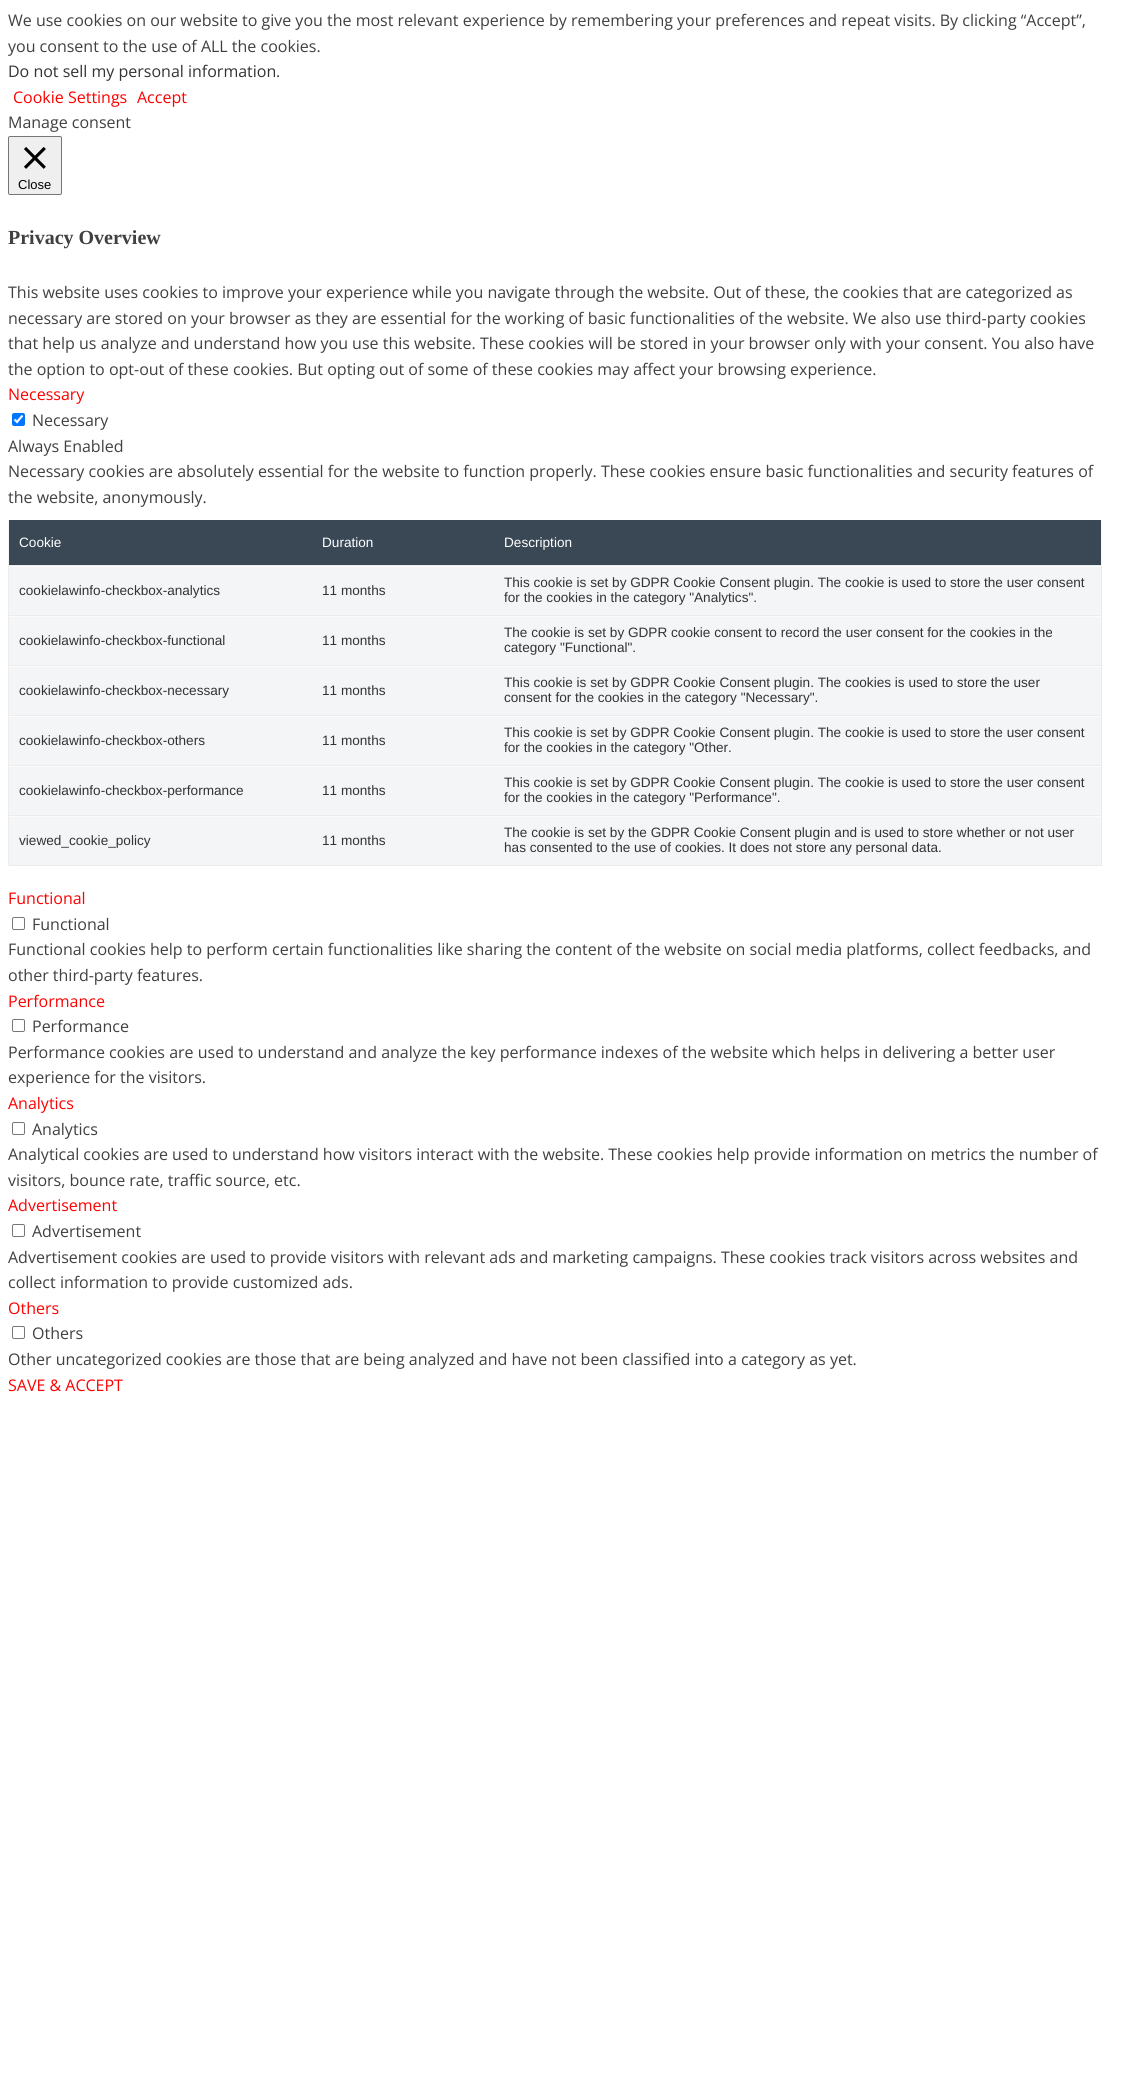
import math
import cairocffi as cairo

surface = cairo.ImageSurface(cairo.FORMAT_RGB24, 1121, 2092)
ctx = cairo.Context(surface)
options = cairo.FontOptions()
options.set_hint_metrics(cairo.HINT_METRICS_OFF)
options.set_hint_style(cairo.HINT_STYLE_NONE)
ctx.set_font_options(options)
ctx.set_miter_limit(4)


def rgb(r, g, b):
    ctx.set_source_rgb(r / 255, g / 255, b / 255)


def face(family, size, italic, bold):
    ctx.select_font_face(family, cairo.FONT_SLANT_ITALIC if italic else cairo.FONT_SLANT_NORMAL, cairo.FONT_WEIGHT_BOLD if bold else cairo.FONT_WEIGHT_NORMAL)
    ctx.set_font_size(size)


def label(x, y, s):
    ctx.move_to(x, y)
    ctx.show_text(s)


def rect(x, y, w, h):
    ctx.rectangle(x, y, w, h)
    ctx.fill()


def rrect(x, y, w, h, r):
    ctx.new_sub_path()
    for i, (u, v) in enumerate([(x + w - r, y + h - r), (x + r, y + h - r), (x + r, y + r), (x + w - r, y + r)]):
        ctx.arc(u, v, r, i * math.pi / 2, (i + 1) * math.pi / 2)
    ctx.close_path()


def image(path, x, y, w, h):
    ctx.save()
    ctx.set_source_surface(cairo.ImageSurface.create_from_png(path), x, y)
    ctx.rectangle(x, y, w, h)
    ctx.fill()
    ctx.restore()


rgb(255, 255, 255)
ctx.paint()
face('Open Sans', 16, 0, 0)
rgb(64, 64, 64)
label(8, 26, 'We use cookies on our website to give you the most relevant experience by remembering your preferences and repeat visits. By clicking “Accept”,')
label(8, 52, 'you consent to the use of ALL the cookies.')
rgb(51, 51, 51)
label(8, 77, 'Do not sell my personal information')
rgb(64, 64, 64)
label(276, 77, '.')
rgb(255, 0, 0)
label(13, 103, 'Cookie Settings')
label(137, 103, 'Accept')
rgb(64, 64, 64)
label(8, 128, 'Manage consent')
rgb(239, 239, 239)
rrect(8.5, 136.5, 53, 58, 1.5)
ctx.fill_preserve()
rgb(118, 118, 118)
ctx.set_line_width(1)
ctx.stroke()
image('image0.png', 24, 147, 22, 22)
face('Liberation Sans', 13, 0, 0)
rgb(0, 0, 0)
label(18, 189, 'Close')
face('Liberation Serif', 20, 0, 1)
rgb(64, 64, 64)
label(8, 244, 'Privacy Overview')
face('Open Sans', 16, 0, 0)
label(8, 298, 'This website uses cookies to improve your experience while you navigate through the website. Out of these, the cookies that are categorized as')
label(8, 324, 'necessary are stored on your browser as they are essential for the working of basic functionalities of the website. We also use third-party cookies')
label(8, 349, 'that help us analyze and understand how you use this website. These cookies will be stored in your browser only with your consent. You also have')
label(8, 375, 'the option to opt-out of these cookies. But opting out of some of these cookies may affect your browsing experience.')
rgb(255, 0, 0)
label(8, 400, 'Necessary')
rgb(0, 117, 255)
rrect(12, 413, 13, 13, 2)
ctx.fill()
ctx.new_path()
ctx.move_to(14.5, 419.5)
ctx.line_to(17, 422)
ctx.line_to(22.5, 415.5)
rgb(255, 255, 255)
ctx.set_line_width(2.1)
ctx.stroke()
rgb(64, 64, 64)
label(32, 426, 'Necessary')
label(8, 452, 'Always Enabled')
label(8, 477, 'Necessary cookies are absolutely essential for the website to function properly. These cookies ensure basic functionalities and security features of')
label(8, 503, 'the website, anonymously.')
rgb(243, 245, 247)
rect(8, 520, 1094, 345)
rgb(58, 72, 86)
rect(9, 520, 1092, 45)
face('Liberation Sans', 13.6, 0, 0)
rgb(255, 255, 255)
label(19, 547, 'Cookie')
label(322, 547, 'Duration')
label(504, 547, 'Description')
rgb(234, 236, 238)
rect(1101, 565, 1, 301)
rect(8, 865, 1094, 1)
rect(8, 565, 1, 301)
image('image1.png', 9, 565, 303, 2)
rgb(51, 51, 51)
label(19, 595, 'cookielawinfo-checkbox-analytics')
image('image2.png', 312, 565, 182, 2)
label(322, 595, '11 months')
image('image3.png', 494, 565, 607, 2)
label(504, 587, 'This cookie is set by GDPR Cookie Consent plugin. The cookie is used to store the user consent')
label(504, 602, 'for the cookies in the category "Analytics".')
image('image1.png', 9, 615, 303, 2)
label(19, 645, 'cookielawinfo-checkbox-functional')
image('image2.png', 312, 615, 182, 2)
label(322, 645, '11 months')
image('image3.png', 494, 615, 607, 2)
label(504, 637, 'The cookie is set by GDPR cookie consent to record the user consent for the cookies in the')
label(504, 652, 'category "Functional".')
image('image1.png', 9, 665, 303, 2)
label(19, 695, 'cookielawinfo-checkbox-necessary')
image('image2.png', 312, 665, 182, 2)
label(322, 695, '11 months')
image('image3.png', 494, 665, 607, 2)
label(504, 687, 'This cookie is set by GDPR Cookie Consent plugin. The cookies is used to store the user')
label(504, 702, 'consent for the cookies in the category "Necessary".')
image('image1.png', 9, 715, 303, 2)
label(19, 745, 'cookielawinfo-checkbox-others')
image('image2.png', 312, 715, 182, 2)
label(322, 745, '11 months')
image('image3.png', 494, 715, 607, 2)
label(504, 737, 'This cookie is set by GDPR Cookie Consent plugin. The cookie is used to store the user consent')
label(504, 752, 'for the cookies in the category "Other.')
image('image1.png', 9, 765, 303, 2)
label(19, 795, 'cookielawinfo-checkbox-performance')
image('image2.png', 312, 765, 182, 2)
label(322, 795, '11 months')
image('image3.png', 494, 765, 607, 2)
label(504, 787, 'This cookie is set by GDPR Cookie Consent plugin. The cookie is used to store the user consent')
label(504, 802, 'for the cookies in the category "Performance".')
image('image1.png', 9, 815, 303, 2)
label(19, 845, 'viewed_cookie_policy')
image('image2.png', 312, 815, 182, 2)
label(322, 845, '11 months')
image('image3.png', 494, 815, 607, 2)
label(504, 837, 'The cookie is set by the GDPR Cookie Consent plugin and is used to store whether or not user')
label(504, 852, 'has consented to the use of cookies. It does not store any personal data.')
face('Open Sans', 16, 0, 0)
rgb(255, 0, 0)
label(8, 904, 'Functional')
rrect(12.5, 917.5, 12, 12, 1.5)
rgb(118, 118, 118)
ctx.set_line_width(1)
ctx.stroke()
rgb(64, 64, 64)
label(32, 930, 'Functional')
label(8, 955, 'Functional cookies help to perform certain functionalities like sharing the content of the website on social media platforms, collect feedbacks, and')
label(8, 981, 'other third-party features.')
rgb(255, 0, 0)
label(8, 1007, 'Performance')
rrect(12.5, 1019.5, 12, 12, 1.5)
rgb(118, 118, 118)
ctx.stroke()
rgb(64, 64, 64)
label(32, 1032, 'Performance')
label(8, 1058, 'Performance cookies are used to understand and analyze the key performance indexes of the website which helps in delivering a better user')
label(8, 1083, 'experience for the visitors.')
rgb(255, 0, 0)
label(8, 1109, 'Analytics')
rrect(12.5, 1122.5, 12, 12, 1.5)
rgb(118, 118, 118)
ctx.stroke()
rgb(64, 64, 64)
label(32, 1135, 'Analytics')
label(8, 1160, 'Analytical cookies are used to understand how visitors interact with the website. These cookies help provide information on metrics the number of')
label(8, 1186, 'visitors, bounce rate, traffic source, etc.')
rgb(255, 0, 0)
label(8, 1211, 'Advertisement')
rrect(12.5, 1224.5, 12, 12, 1.5)
rgb(118, 118, 118)
ctx.stroke()
rgb(64, 64, 64)
label(32, 1237, 'Advertisement')
label(8, 1263, 'Advertisement cookies are used to provide visitors with relevant ads and marketing campaigns. These cookies track visitors across websites and')
label(8, 1288, 'collect information to provide customized ads.')
rgb(255, 0, 0)
label(8, 1314, 'Others')
rrect(12.5, 1326.5, 12, 12, 1.5)
rgb(118, 118, 118)
ctx.stroke()
rgb(64, 64, 64)
label(32, 1339, 'Others')
label(8, 1365, 'Other uncategorized cookies are those that are being analyzed and have not been classified into a category as yet.')
rgb(255, 0, 0)
label(8, 1391, 'SAVE & ACCEPT')
surface.write_to_png('render.png')
